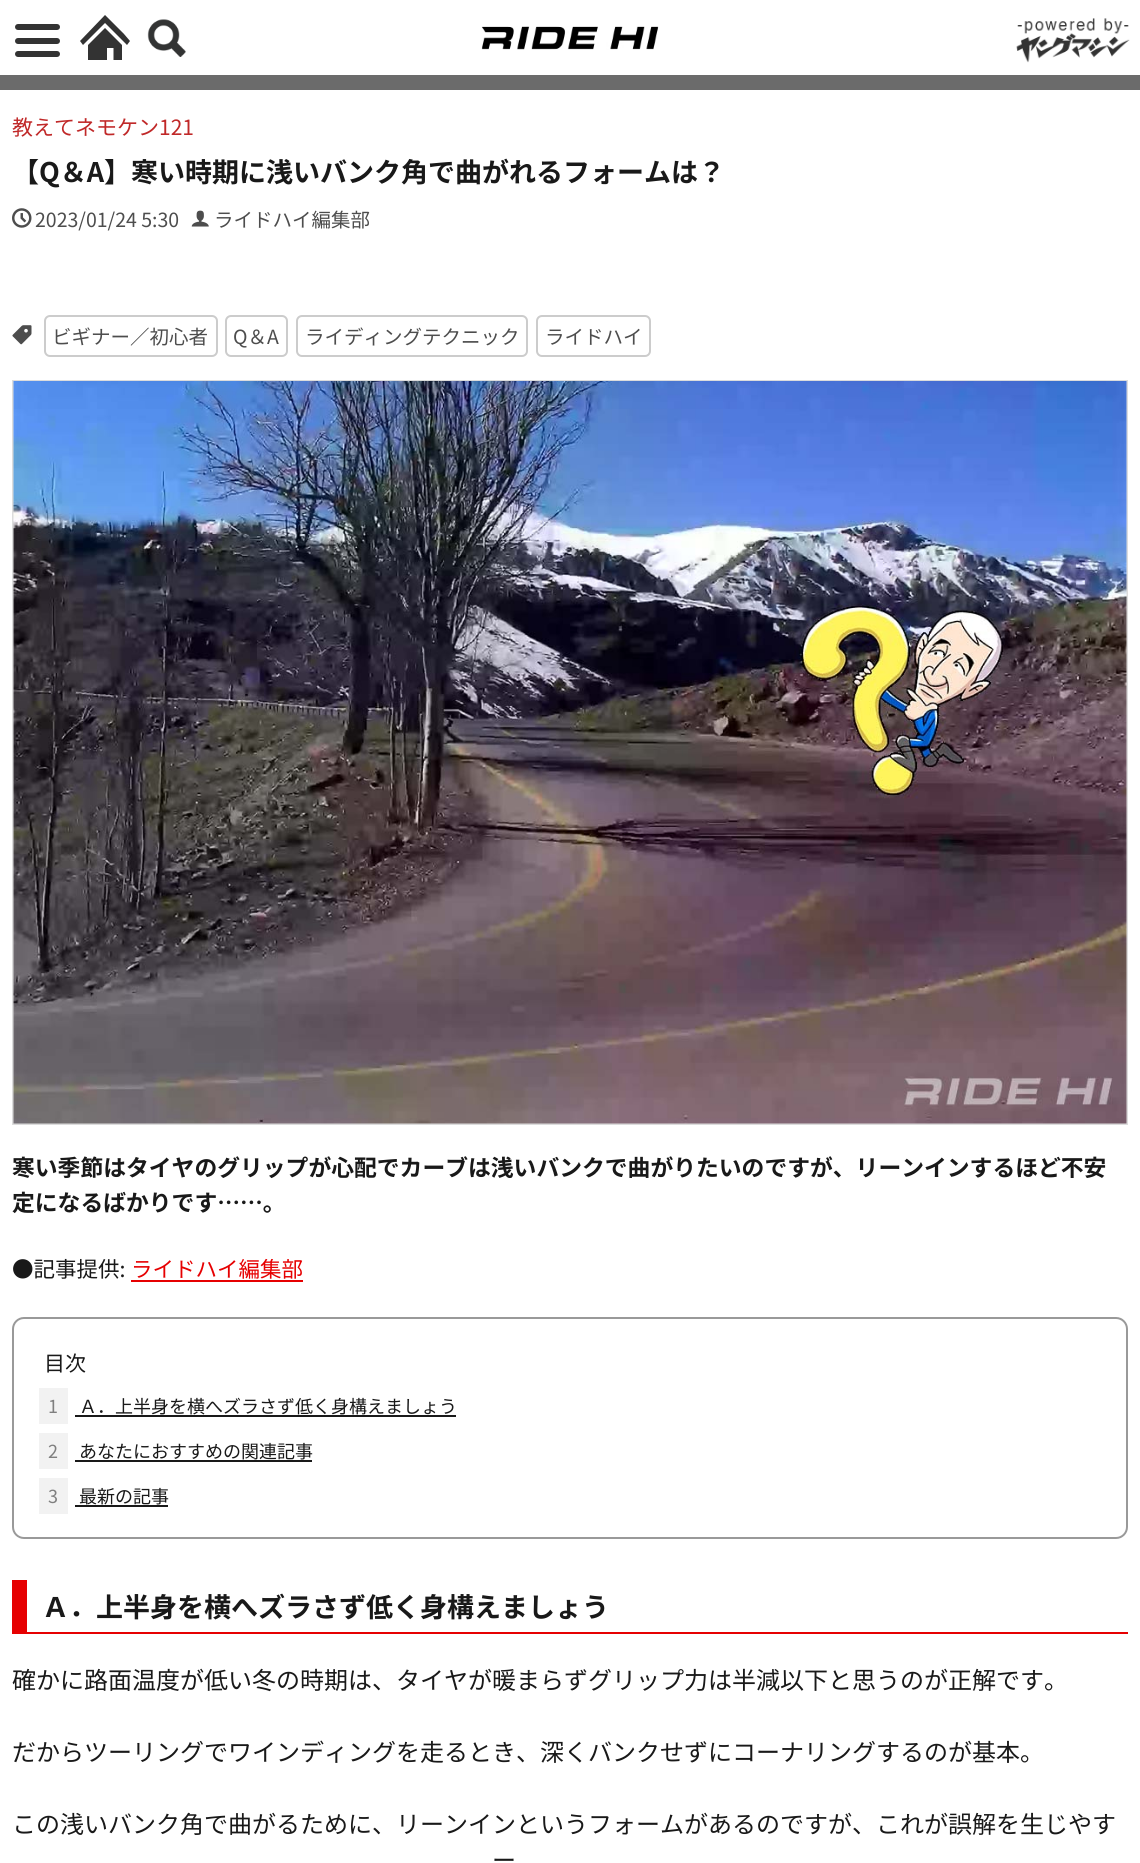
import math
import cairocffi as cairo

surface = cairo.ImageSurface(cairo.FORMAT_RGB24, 1140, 1863)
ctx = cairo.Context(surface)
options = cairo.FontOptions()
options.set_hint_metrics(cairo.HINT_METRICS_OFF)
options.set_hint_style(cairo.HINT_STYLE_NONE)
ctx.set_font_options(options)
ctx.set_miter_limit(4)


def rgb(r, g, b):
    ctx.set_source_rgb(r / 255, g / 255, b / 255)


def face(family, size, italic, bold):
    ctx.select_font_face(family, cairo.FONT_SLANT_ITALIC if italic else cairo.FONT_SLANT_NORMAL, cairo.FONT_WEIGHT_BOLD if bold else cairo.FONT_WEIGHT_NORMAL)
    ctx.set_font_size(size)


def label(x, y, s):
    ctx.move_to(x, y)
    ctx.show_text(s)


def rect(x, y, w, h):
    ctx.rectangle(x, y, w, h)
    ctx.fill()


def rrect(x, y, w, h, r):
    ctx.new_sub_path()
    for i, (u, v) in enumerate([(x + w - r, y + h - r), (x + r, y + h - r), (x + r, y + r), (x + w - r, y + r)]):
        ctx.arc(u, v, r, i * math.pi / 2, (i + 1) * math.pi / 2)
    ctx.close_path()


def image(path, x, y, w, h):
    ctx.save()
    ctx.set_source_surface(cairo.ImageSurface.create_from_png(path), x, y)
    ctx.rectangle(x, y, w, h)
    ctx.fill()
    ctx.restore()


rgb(255, 255, 255)
ctx.paint()
rgb(107, 107, 107)
rect(0, 75, 1140, 15)
rgb(51, 51, 51)
rrect(15, 38, 45, 6, 3)
ctx.fill()
rrect(15, 24, 45, 6, 3)
ctx.fill()
rrect(15, 51, 45, 6, 3)
ctx.fill()
ctx.new_path()
ctx.move_to(124, 34)
ctx.line_to(105, 15)
ctx.line_to(80, 41)
ctx.line_to(83, 45)
ctx.line_to(105, 23)
ctx.line_to(127, 45)
ctx.line_to(130, 41)
ctx.close_path()
ctx.fill()
ctx.new_path()
ctx.move_to(88, 45)
ctx.line_to(88, 60)
ctx.line_to(107, 60)
ctx.line_to(107, 48)
ctx.line_to(113.5, 48)
ctx.line_to(113.5, 60)
ctx.line_to(122, 60)
ctx.line_to(122, 45)
ctx.line_to(105, 28)
ctx.close_path()
ctx.fill()
image('image0.png', 147, 19, 39, 38)
image('image1.png', 481, 26, 178, 24)
image('image2.png', 1016, 18, 114, 45)
face('Noto Sans CJK JP', 21, 0, 0)
rgb(192, 40, 40)
label(12, 135, '教えてネモケン121')
face('Noto Sans CJK JP', 27, 0, 1)
rgb(25, 25, 25)
label(12, 182, '【Q＆A】寒い時期に浅いバンク角で曲がれるフォームは？')
image('image3.png', 12, 208, 20, 20)
face('Noto Sans CJK JP', 19.5, 0, 0)
rgb(77, 77, 77)
label(35, 227, '2023/01/24 5:30')
image('image4.png', 191, 210, 18, 17)
label(214, 227, 'ライドハイ編集部')
image('image5.png', 12, 325, 20, 20)
rrect(45, 316, 172, 40, 5)
rgb(204, 204, 204)
ctx.stroke()
rgb(77, 77, 77)
label(52, 344, 'ビギナー／初心者')
rrect(226, 316, 61, 40, 5)
rgb(204, 204, 204)
ctx.stroke()
rgb(77, 77, 77)
label(233, 344, 'Q＆A')
rrect(297, 316, 230, 40, 5)
rgb(204, 204, 204)
ctx.stroke()
rgb(77, 77, 77)
label(305, 344, 'ライディングテクニック')
rrect(537, 316, 113, 40, 5)
rgb(204, 204, 204)
ctx.stroke()
rgb(77, 77, 77)
label(545, 344, 'ライドハイ')
ctx.rectangle(13, 381, 1114, 743)
rgb(220, 220, 220)
ctx.stroke()
image('image6.png', 13, 381, 1114, 743)
face('Noto Sans CJK JP', 22.8, 0, 1)
rgb(25, 25, 25)
label(12, 1176, '寒い季節はタイヤのグリップが心配でカーブは浅いバンクで曲がりたいのですが、リーンインするほど不安')
label(12, 1211, '定になるばかりです……。')
face('Noto Sans CJK JP', 21.5, 0, 0)
label(12, 1277, '●記事提供:')
rgb(230, 0, 1)
label(131, 1277, 'ライドハイ編集部')
rect(131, 1280, 172, 2)
rrect(13, 1318, 1114, 220, 11)
rgb(153, 153, 153)
ctx.stroke()
face('Noto Sans CJK JP', 21, 0, 0)
rgb(25, 25, 25)
label(44, 1371, '目次')
rgb(242, 242, 242)
rect(39, 1388, 29, 36)
face('Noto Sans CJK JP', 18, 0, 0)
rgb(127, 127, 127)
label(48, 1413, '1')
rgb(25, 25, 25)
label(79, 1413, 'Ａ．上半身を横へズラさず低く身構えましょう')
rect(75, 1415, 381, 2)
rgb(242, 242, 242)
rect(39, 1433, 29, 36)
rgb(127, 127, 127)
label(48, 1458, '2')
rgb(25, 25, 25)
label(79, 1458, 'あなたにおすすめの関連記事')
rect(75, 1460, 237, 2)
rgb(242, 242, 242)
rect(39, 1478, 29, 36)
rgb(127, 127, 127)
label(48, 1503, '3')
rgb(25, 25, 25)
label(79, 1503, '最新の記事')
rect(75, 1505, 93, 2)
rgb(230, 0, 1)
rect(27, 1632, 1101, 2)
rect(12, 1580, 15, 54)
face('Noto Sans CJK JP', 27, 0, 1)
rgb(25, 25, 25)
label(42, 1617, 'Ａ．上半身を横へズラさず低く身構えましょう')
face('Noto Sans CJK JP', 24, 0, 0)
label(12, 1689, '確かに路面温度が低い冬の時期は、タイヤが暖まらずグリップ力は半減以下と思うのが正解です。')
label(12, 1761, 'だからツーリングでワインディングを走るとき、深くバンクせずにコーナリングするのが基本。')
label(12, 1833, 'この浅いバンク角で曲がるために、リーンインというフォームがあるのですが、これが誤解を生じやす')
label(492, 1869, 'ー')
surface.write_to_png('render.png')
